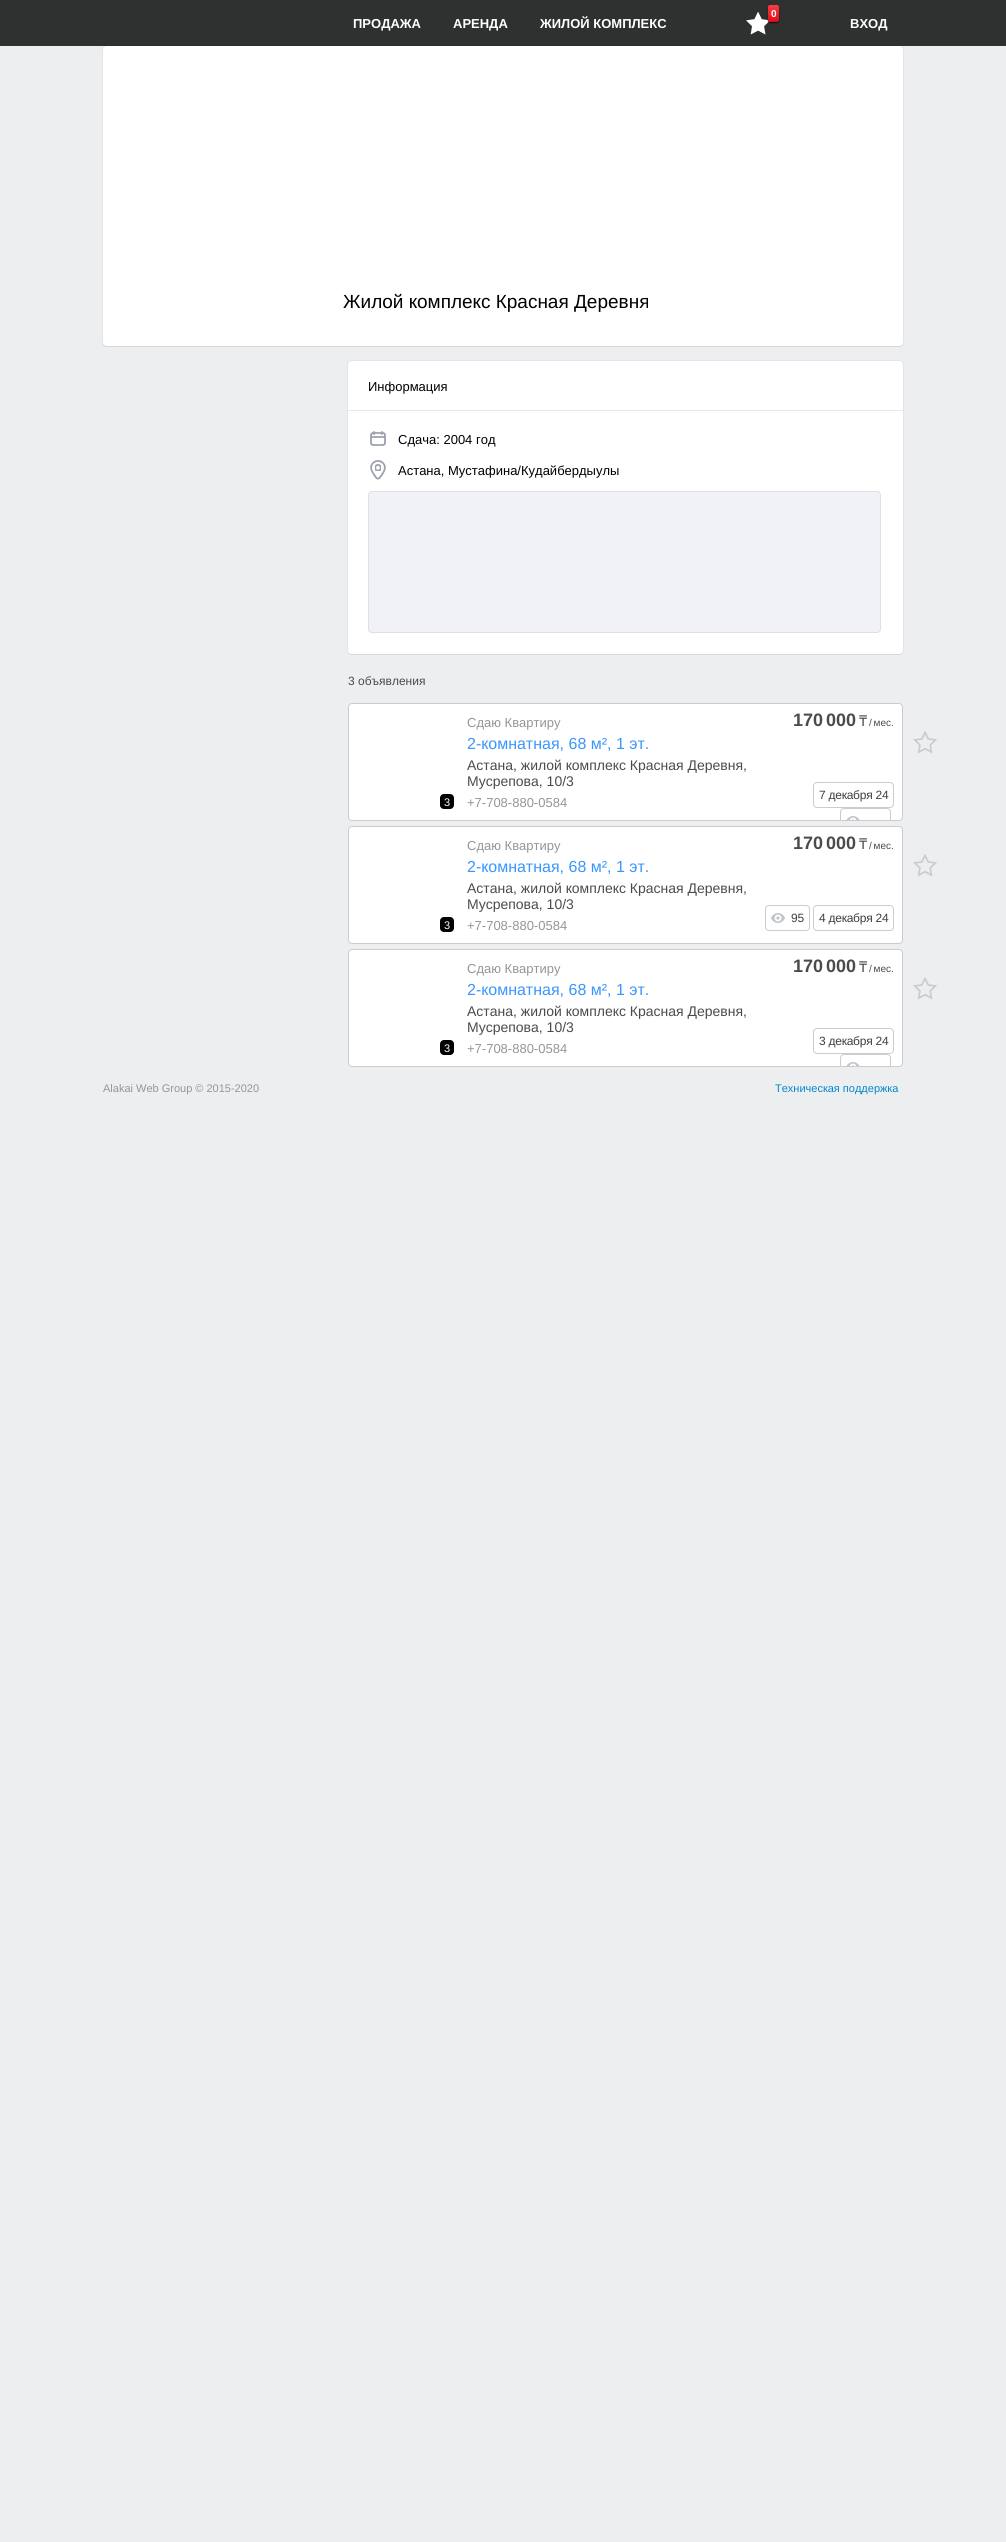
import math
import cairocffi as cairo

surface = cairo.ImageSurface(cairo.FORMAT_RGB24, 1006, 2542)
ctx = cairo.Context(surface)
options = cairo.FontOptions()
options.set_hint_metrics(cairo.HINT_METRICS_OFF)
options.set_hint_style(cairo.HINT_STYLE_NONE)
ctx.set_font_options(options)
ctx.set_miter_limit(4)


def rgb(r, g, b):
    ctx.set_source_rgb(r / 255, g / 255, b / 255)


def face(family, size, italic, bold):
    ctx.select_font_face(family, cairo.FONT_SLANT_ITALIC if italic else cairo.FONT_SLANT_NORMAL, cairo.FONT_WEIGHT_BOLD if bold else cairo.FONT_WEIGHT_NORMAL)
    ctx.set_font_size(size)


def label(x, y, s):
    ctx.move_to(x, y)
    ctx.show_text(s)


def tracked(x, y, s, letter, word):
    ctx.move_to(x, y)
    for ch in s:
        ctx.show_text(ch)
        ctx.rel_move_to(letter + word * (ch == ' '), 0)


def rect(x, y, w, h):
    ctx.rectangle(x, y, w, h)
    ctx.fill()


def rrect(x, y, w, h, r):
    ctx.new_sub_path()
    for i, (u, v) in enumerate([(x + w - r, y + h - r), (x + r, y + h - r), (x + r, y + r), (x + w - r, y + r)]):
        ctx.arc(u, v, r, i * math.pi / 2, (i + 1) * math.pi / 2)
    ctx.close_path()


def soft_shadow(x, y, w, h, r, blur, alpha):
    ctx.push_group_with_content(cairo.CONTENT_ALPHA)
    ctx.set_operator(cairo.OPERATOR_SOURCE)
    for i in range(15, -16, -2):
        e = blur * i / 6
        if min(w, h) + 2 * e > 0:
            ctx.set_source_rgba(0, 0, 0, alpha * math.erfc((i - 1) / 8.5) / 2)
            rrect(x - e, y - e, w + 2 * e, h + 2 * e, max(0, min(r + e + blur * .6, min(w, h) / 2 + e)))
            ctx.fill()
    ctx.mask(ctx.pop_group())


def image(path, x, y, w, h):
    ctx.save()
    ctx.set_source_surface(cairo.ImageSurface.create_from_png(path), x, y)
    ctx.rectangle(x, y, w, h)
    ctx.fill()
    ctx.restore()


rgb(237, 238, 240)
ctx.paint()
rrect(102.5, 45.5, 801, 301, 4.5)
rgb(227, 228, 232)
ctx.set_line_width(1)
ctx.stroke()
ctx.set_source_rgba(0, 0, 0, 0.8)
rect(0, 0, 1006, 46)
image('image0.png', 746, 11, 24, 24)
rgb(0, 0, 0)
soft_shadow(768, 6, 11, 17, 2, 0.5, 0.7)
gradient = cairo.LinearGradient(774, 5, 774, 22)
gradient.add_color_stop_rgba(0, 0.98, 0.235, 0.271, 1)
gradient.add_color_stop_rgba(1, 0.863, 0.051, 0.09, 1)
ctx.set_source(gradient)
rrect(768, 5, 11, 17, 2)
ctx.fill()
face('Liberation Sans', 10, 0, 1)
rgb(255, 255, 255)
label(771, 17, '0')
face('Liberation Sans', 13, 0, 1)
label(353, 28, 'ПРОДАЖА')
label(453, 28, 'АРЕНДА')
label(540, 28, 'ЖИЛОЙ КОМПЛЕКС')
label(850, 28, 'ВХОД')
rgb(215, 216, 219)
ctx.new_path()
ctx.move_to(103, 342)
ctx.curve_to(103, 345, 104, 347, 107, 347)
ctx.line_to(899, 347)
ctx.curve_to(902, 347, 903, 345, 903, 342)
ctx.curve_to(903, 344, 901, 346, 899, 346)
ctx.line_to(107, 346)
ctx.curve_to(105, 346, 103, 344, 103, 342)
ctx.close_path()
ctx.fill()
rgb(255, 255, 255)
rrect(103, 46, 800, 300, 4)
ctx.fill()
face('Liberation Sans', 19, 0, 0)
rgb(0, 0, 0)
label(343, 308, 'Жилой комплекс Красная Деревня')
rrect(347.5, 360.5, 556, 294, 4.5)
rgb(227, 228, 232)
ctx.stroke()
rgb(215, 216, 219)
ctx.new_path()
ctx.move_to(348, 650)
ctx.line_to(348, 651)
ctx.curve_to(348, 653, 350, 655, 352, 655)
ctx.line_to(899, 655)
ctx.curve_to(901, 655, 903, 653, 903, 651)
ctx.line_to(903, 650)
ctx.curve_to(903, 652, 901, 654, 899, 654)
ctx.line_to(352, 654)
ctx.curve_to(350, 654, 348, 652, 348, 650)
ctx.close_path()
ctx.fill()
rgb(255, 255, 255)
rrect(348, 361, 555, 293, 4)
ctx.fill()
rgb(231, 232, 236)
rect(348, 410, 555, 1)
face('Liberation Sans', 13, 0, 0)
rgb(0, 0, 0)
label(368, 391, 'Информация')
image('image1.png', 370, 431, 16, 15)
label(398, 444, 'Сдача: 2004 год')
image('image2.png', 370, 460, 16, 20)
label(398, 475, 'Астана, Мустафина/Кудайбердыулы')
rgb(240, 242, 245)
rrect(368, 491, 513, 142, 4)
ctx.fill()
rrect(368.5, 491.5, 512, 141, 3.5)
ctx.set_source_rgba(0, 0, 0, 0.08)
ctx.stroke()
face('Liberation Sans', 12, 0, 0)
rgb(69, 76, 85)
label(348, 685, '3 объявления')
rgb(255, 255, 255)
rrect(348.5, 703.5, 554, 117, 3.5)
ctx.fill_preserve()
rgb(204, 204, 204)
ctx.stroke()
rgb(0, 0, 0)
rrect(440, 794, 14, 15, 4)
ctx.fill()
face('Liberation Sans', 11, 0, 0)
rgb(255, 255, 255)
label(444, 806, '3')
face('Liberation Sans', 13, 0, 0)
rgb(147, 150, 153)
label(467, 727, 'Сдаю Квартиру')
face('Liberation Sans', 16, 0, 0)
rgb(57, 150, 255)
label(467, 749, '2-комнатная, 68 м², 1 эт.')
face('Liberation Sans', 14, 0, 0)
rgb(75, 75, 75)
label(467, 770, 'Астана, жилой комплекс Красная Деревня,')
label(467, 786, 'Мусрепова, 10/3')
face('Liberation Sans', 13, 0, 0)
rgb(147, 150, 153)
label(467, 807, '+7-708-880-0584')
face('Liberation Sans', 18, 0, 1)
rgb(75, 75, 75)
tracked(793, 726, '170 000', 0, -2)
face('Noto Sans', 15, 0, 0)
label(859, 726, '₸')
face('Liberation Sans', 10, 0, 0)
tracked(869, 726, '/ мес.', 0, -1)
rrect(813.5, 782.5, 80, 25, 3.5)
rgb(204, 204, 204)
ctx.stroke()
face('Liberation Sans', 12, 0, 0)
rgb(62, 62, 62)
tracked(819, 799, '7 декабря 24', -0.25, 0)
ctx.save()
ctx.rectangle(349, 704, 553, 116)
ctx.clip()
rrect(840.5, 808.5, 50, 25, 3.5)
rgb(204, 204, 204)
ctx.stroke()
ctx.restore()
image('image3.png', 846, 816, 14, 4)
image('image4.png', 913, 731, 24, 23)
rgb(255, 255, 255)
rrect(348.5, 826.5, 554, 117, 3.5)
ctx.fill_preserve()
rgb(204, 204, 204)
ctx.stroke()
rgb(0, 0, 0)
rrect(440, 917, 14, 15, 4)
ctx.fill()
face('Liberation Sans', 11, 0, 0)
rgb(255, 255, 255)
label(444, 929, '3')
face('Liberation Sans', 13, 0, 0)
rgb(147, 150, 153)
label(467, 850, 'Сдаю Квартиру')
face('Liberation Sans', 16, 0, 0)
rgb(57, 150, 255)
label(467, 872, '2-комнатная, 68 м², 1 эт.')
face('Liberation Sans', 14, 0, 0)
rgb(75, 75, 75)
label(467, 893, 'Астана, жилой комплекс Красная Деревня,')
label(467, 909, 'Мусрепова, 10/3')
face('Liberation Sans', 13, 0, 0)
rgb(147, 150, 153)
label(467, 930, '+7-708-880-0584')
face('Liberation Sans', 18, 0, 1)
rgb(75, 75, 75)
tracked(793, 849, '170 000', 0, -2)
face('Noto Sans', 15, 0, 0)
label(859, 849, '₸')
face('Liberation Sans', 10, 0, 0)
tracked(869, 849, '/ мес.', 0, -1)
rrect(765.5, 905.5, 44, 25, 3.5)
rgb(204, 204, 204)
ctx.stroke()
image('image5.png', 771, 913, 14, 10)
face('Liberation Sans', 12, 0, 0)
rgb(62, 62, 62)
tracked(791, 922, '95', -0.25, 0)
rrect(813.5, 905.5, 80, 25, 3.5)
rgb(204, 204, 204)
ctx.stroke()
rgb(62, 62, 62)
tracked(819, 922, '4 декабря 24', -0.25, 0)
image('image4.png', 913, 854, 24, 23)
rgb(255, 255, 255)
rrect(348.5, 949.5, 554, 117, 3.5)
ctx.fill_preserve()
rgb(204, 204, 204)
ctx.stroke()
rgb(0, 0, 0)
rrect(440, 1040, 14, 15, 4)
ctx.fill()
face('Liberation Sans', 11, 0, 0)
rgb(255, 255, 255)
label(444, 1052, '3')
face('Liberation Sans', 13, 0, 0)
rgb(147, 150, 153)
label(467, 973, 'Сдаю Квартиру')
face('Liberation Sans', 16, 0, 0)
rgb(57, 150, 255)
label(467, 995, '2-комнатная, 68 м², 1 эт.')
face('Liberation Sans', 14, 0, 0)
rgb(75, 75, 75)
label(467, 1016, 'Астана, жилой комплекс Красная Деревня,')
label(467, 1032, 'Мусрепова, 10/3')
face('Liberation Sans', 13, 0, 0)
rgb(147, 150, 153)
label(467, 1053, '+7-708-880-0584')
face('Liberation Sans', 18, 0, 1)
rgb(75, 75, 75)
tracked(793, 972, '170 000', 0, -2)
face('Noto Sans', 15, 0, 0)
label(859, 972, '₸')
face('Liberation Sans', 10, 0, 0)
tracked(869, 972, '/ мес.', 0, -1)
rrect(813.5, 1028.5, 80, 25, 3.5)
rgb(204, 204, 204)
ctx.stroke()
face('Liberation Sans', 12, 0, 0)
rgb(62, 62, 62)
tracked(819, 1045, '3 декабря 24', -0.25, 0)
ctx.save()
ctx.rectangle(349, 950, 553, 116)
ctx.clip()
rrect(840.5, 1054.5, 50, 25, 3.5)
rgb(204, 204, 204)
ctx.stroke()
ctx.restore()
image('image3.png', 846, 1062, 14, 4)
image('image4.png', 913, 977, 24, 23)
face('Liberation Sans', 11, 0, 0)
rgb(147, 150, 153)
label(103, 1092, 'Alakai Web Group © 2015-2020')
rgb(3, 136, 204)
label(775, 1092, 'Техническая поддержка')
surface.write_to_png('render.png')
